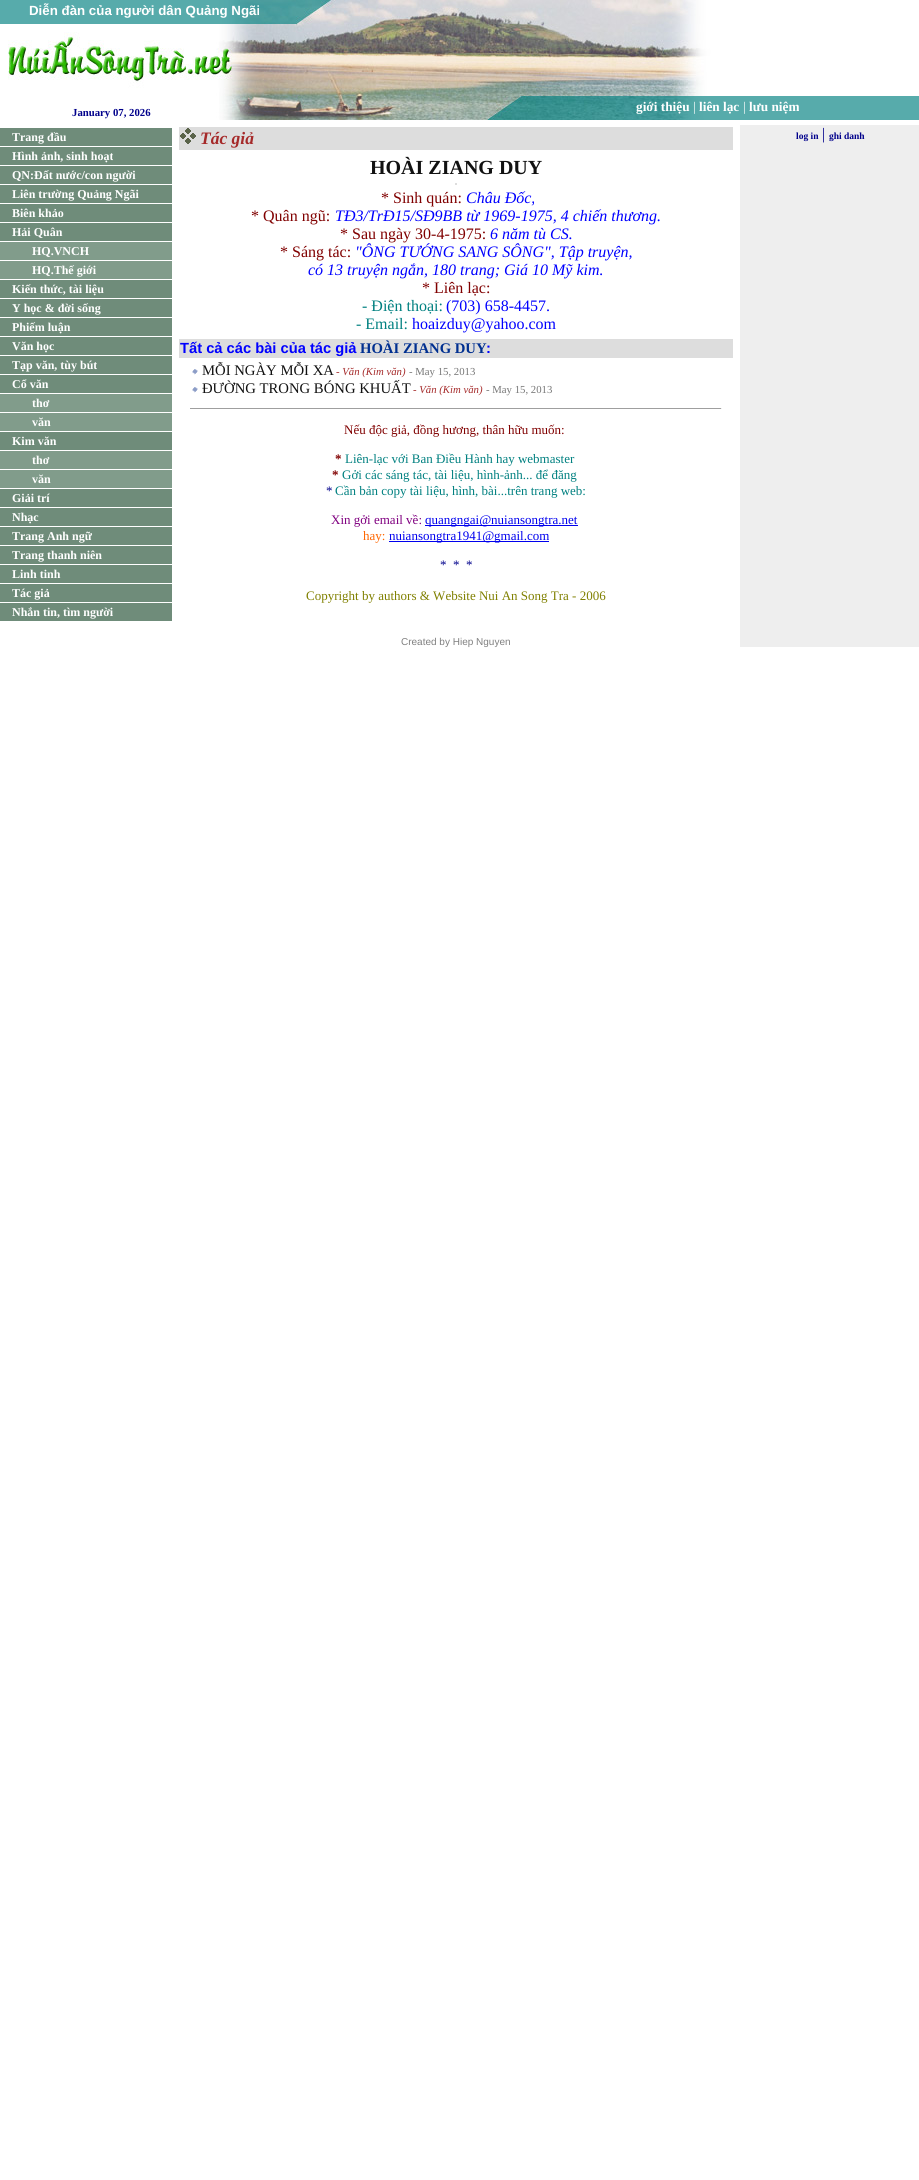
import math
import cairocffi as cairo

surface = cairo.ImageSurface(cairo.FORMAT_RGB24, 919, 2180)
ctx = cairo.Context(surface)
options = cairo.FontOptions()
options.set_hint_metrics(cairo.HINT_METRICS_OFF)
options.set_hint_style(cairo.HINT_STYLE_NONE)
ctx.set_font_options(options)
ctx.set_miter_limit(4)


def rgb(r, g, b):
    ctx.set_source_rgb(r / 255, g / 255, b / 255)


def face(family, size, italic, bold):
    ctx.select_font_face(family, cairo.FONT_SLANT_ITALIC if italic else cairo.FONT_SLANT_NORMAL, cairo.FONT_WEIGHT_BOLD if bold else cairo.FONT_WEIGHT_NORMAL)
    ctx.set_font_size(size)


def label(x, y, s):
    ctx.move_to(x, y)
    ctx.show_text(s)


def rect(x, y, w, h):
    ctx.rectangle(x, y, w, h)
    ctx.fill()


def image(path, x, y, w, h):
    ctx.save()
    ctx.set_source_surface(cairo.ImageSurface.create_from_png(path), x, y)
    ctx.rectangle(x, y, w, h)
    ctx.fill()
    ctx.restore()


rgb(255, 255, 255)
ctx.paint()
image('image0.png', 0, 0, 919, 120)
face('Liberation Sans', 13.3, 0, 1)
rgb(255, 255, 255)
label(29, 15, 'Diễn đàn của người dân Quảng Ngãi')
face('Liberation Serif', 10.75, 0, 1)
rgb(0, 0, 139)
label(72, 116, 'January 07, 2026')
face('Liberation Serif', 13.3, 0, 1)
rgb(255, 255, 255)
label(636, 111, 'giới thiệu')
face('Liberation Serif', 13.3, 0, 0)
label(693, 111, '|')
face('Liberation Serif', 13.3, 0, 1)
label(699, 111, 'liên lạc')
face('Liberation Serif', 13.3, 0, 0)
label(743, 111, '|')
face('Liberation Serif', 13.3, 0, 1)
label(749, 111, 'lưu niệm')
rgb(111, 140, 122)
rect(0, 128, 172, 18)
face('Liberation Serif', 12, 0, 1)
rgb(255, 255, 255)
label(12, 141, 'Trang đầu')
rgb(111, 140, 122)
rect(0, 147, 172, 18)
rgb(255, 255, 255)
label(12, 160, 'Hình ảnh, sinh hoạt')
rgb(111, 140, 122)
rect(0, 166, 172, 18)
rgb(255, 255, 255)
label(12, 179, 'QN:Đất nước/con người')
rgb(111, 140, 122)
rect(0, 185, 172, 18)
rgb(255, 255, 255)
label(12, 198, 'Liên trường Quảng Ngãi')
rgb(111, 140, 122)
rect(0, 204, 172, 18)
rgb(255, 255, 255)
label(12, 217, 'Biên khảo')
rgb(111, 140, 122)
rect(0, 223, 172, 18)
rgb(255, 255, 255)
label(12, 236, 'Hải Quân')
rgb(129, 156, 139)
rect(0, 242, 172, 18)
rgb(255, 255, 255)
label(32, 255, 'HQ.VNCH')
rgb(129, 156, 139)
rect(0, 261, 172, 18)
rgb(255, 255, 255)
label(32, 274, 'HQ.Thế giới')
rgb(111, 140, 122)
rect(0, 280, 172, 18)
rgb(255, 255, 255)
label(12, 293, 'Kiến thức, tài liệu')
rgb(111, 140, 122)
rect(0, 299, 172, 18)
rgb(255, 255, 255)
label(12, 312, 'Y học & đời sống')
rgb(111, 140, 122)
rect(0, 318, 172, 18)
rgb(255, 255, 255)
label(12, 331, 'Phiếm luận')
rgb(111, 140, 122)
rect(0, 337, 172, 18)
rgb(255, 255, 255)
label(12, 350, 'Văn học')
rgb(111, 140, 122)
rect(0, 356, 172, 18)
rgb(255, 255, 255)
label(12, 369, 'Tạp văn, tùy bút')
rgb(111, 140, 122)
rect(0, 375, 172, 18)
rgb(255, 255, 255)
label(12, 388, 'Cổ văn')
rgb(129, 156, 139)
rect(0, 394, 172, 18)
rgb(255, 255, 255)
label(32, 407, 'thơ')
rgb(129, 156, 139)
rect(0, 413, 172, 18)
rgb(255, 255, 255)
label(32, 426, 'văn')
rgb(111, 140, 122)
rect(0, 432, 172, 18)
rgb(255, 255, 255)
label(12, 445, 'Kim văn')
rgb(129, 156, 139)
rect(0, 451, 172, 18)
rgb(255, 255, 255)
label(32, 464, 'thơ')
rgb(129, 156, 139)
rect(0, 470, 172, 18)
rgb(255, 255, 255)
label(32, 483, 'văn')
rgb(111, 140, 122)
rect(0, 489, 172, 18)
rgb(255, 255, 255)
label(12, 502, 'Giải trí')
rgb(111, 140, 122)
rect(0, 508, 172, 18)
rgb(255, 255, 255)
label(12, 521, 'Nhạc')
rgb(111, 140, 122)
rect(0, 527, 172, 18)
rgb(255, 255, 255)
label(12, 540, 'Trang Anh ngữ')
rgb(111, 140, 122)
rect(0, 546, 172, 18)
rgb(255, 255, 255)
label(12, 559, 'Trang thanh niên')
rgb(111, 140, 122)
rect(0, 565, 172, 18)
rgb(255, 255, 255)
label(12, 578, 'Linh tinh')
rgb(111, 140, 122)
rect(0, 584, 172, 18)
rgb(255, 255, 255)
label(12, 597, 'Tác giả')
rgb(111, 140, 122)
rect(0, 603, 172, 18)
rgb(255, 255, 255)
label(12, 616, 'Nhắn tin, tìm người')
rgb(221, 221, 221)
rect(179, 127, 554, 23)
image('image1.png', 180, 128, 16, 16)
face('Liberation Serif', 17.5, 1, 1)
rgb(165, 42, 42)
label(200, 144, 'Tác giả')
face('Liberation Serif', 20, 0, 1)
rgb(17, 17, 17)
label(370, 174, 'HOÀI ZIANG DUY')
rgb(221, 221, 221)
rect(455, 183, 2, 1)
rect(456, 183, 1, 2)
rect(455, 184, 2, 1)
face('Liberation Serif', 16, 0, 0)
rgb(128, 0, 0)
label(381, 203, '* Sinh quán:')
face('Liberation Serif', 16, 1, 0)
rgb(0, 0, 255)
label(466, 203, 'Châu Đốc,')
face('Liberation Serif', 16, 0, 0)
rgb(128, 0, 0)
label(251, 221, '* Quân ngũ:')
face('Liberation Serif', 16, 1, 0)
rgb(0, 0, 255)
label(335, 221, 'TĐ3/TrĐ15/SĐ9BB từ 1969-1975, 4 chiến thương.')
face('Liberation Serif', 16, 0, 0)
rgb(128, 0, 0)
label(340, 239, '* Sau ngày 30-4-1975:')
face('Liberation Serif', 16, 1, 0)
rgb(0, 0, 255)
label(490, 239, '6 năm tù CS.')
face('Liberation Serif', 16, 0, 0)
rgb(128, 0, 0)
label(280, 257, '* Sáng tác:')
face('Liberation Serif', 16, 1, 0)
rgb(0, 0, 255)
label(355, 257, '"ÔNG TƯỚNG SANG SÔNG", Tập truyện,')
label(308, 275, 'có 13 truyện ngắn, 180 trang; Giá 10 Mỹ kim.')
face('Liberation Serif', 16, 0, 0)
rgb(128, 0, 0)
label(422, 293, '* Liên lạc:')
rgb(0, 128, 128)
label(362, 311, '- Điện thoại:')
rgb(0, 0, 255)
label(446, 311, '(703) 658-4457.')
rgb(0, 128, 128)
label(356, 329, '- Email:')
rgb(0, 0, 255)
label(412, 329, 'hoaizduy@yahoo.com')
rgb(221, 221, 221)
rect(179, 339, 554, 19)
face('Liberation Sans', 14.7, 0, 1)
rgb(0, 0, 255)
label(180, 353, 'Tất cả các bài của tác giả')
face('Liberation Serif', 14.7, 0, 1)
rgb(0, 47, 144)
label(360, 353, 'HOÀI ZIANG DUY')
face('Liberation Sans', 14.7, 0, 1)
rgb(0, 0, 255)
label(486, 353, ':')
image('image2.png', 192, 369, 6, 6)
face('Liberation Serif', 14.7, 0, 0)
rgb(17, 17, 17)
label(202, 375, 'MỖI NGÀY MỖI XA')
face('Liberation Serif', 10.75, 1, 0)
rgb(165, 42, 42)
label(336, 375, '- Văn (Kim văn)')
face('Liberation Serif', 10.75, 0, 0)
rgb(119, 119, 119)
label(409, 375, '- May 15, 2013')
image('image2.png', 192, 387, 6, 6)
face('Liberation Serif', 14.7, 0, 0)
rgb(17, 17, 17)
label(202, 393, 'ÐƯỜNG TRONG BÓNG KHUẤT')
face('Liberation Serif', 10.75, 1, 0)
rgb(165, 42, 42)
label(413, 393, '- Văn (Kim văn)')
face('Liberation Serif', 10.75, 0, 0)
rgb(119, 119, 119)
label(486, 393, '- May 15, 2013')
rgb(159, 159, 159)
rect(190, 408, 532, 1)
rgb(238, 238, 238)
rect(721, 408, 1, 1)
face('Liberation Serif', 13, 0, 0)
rgb(128, 0, 0)
label(344, 434, 'Nếu độc giả, đồng hương, thân hữu muốn:')
face('Liberation Serif', 13, 0, 1)
label(335, 463, '*')
face('Liberation Serif', 13, 0, 0)
rgb(0, 128, 128)
label(345, 463, 'Liên-lạc với Ban Điều Hành hay webmaster')
face('Liberation Serif', 13, 0, 1)
rgb(128, 0, 0)
label(332, 479, '*')
face('Liberation Serif', 13, 0, 0)
rgb(0, 128, 128)
label(342, 479, 'Gởi các sáng tác, tài liệu, hình-ảnh... để đăng')
rgb(0, 0, 139)
label(326, 495, '*')
rgb(0, 128, 128)
label(335, 495, 'Cần bản copy tài liệu, hình, bài...trên trang web:')
rgb(128, 0, 128)
label(331, 524, 'Xin gởi email về:')
rgb(0, 0, 238)
rect(425, 525, 153, 1)
label(425, 524, 'quangngai@nuiansongtra.net')
rgb(255, 102, 0)
label(363, 540, 'hay:')
rgb(0, 0, 238)
rect(389, 541, 160, 1)
label(389, 540, 'nuiansongtra1941@gmail.com')
rgb(0, 0, 139)
label(440, 569, '*  *  *')
rgb(128, 128, 0)
label(306, 600, 'Copyright by authors & Website Nui An Song Tra - 2006')
face('Liberation Sans', 10, 0, 0)
rgb(128, 128, 128)
label(401, 645, 'Created by Hiep Nguyen')
rgb(238, 238, 238)
rect(740, 125, 179, 522)
face('Liberation Serif', 9.5, 0, 1)
rgb(0, 0, 139)
label(796, 139, 'log in')
face('Liberation Serif', 16, 0, 0)
label(822, 139, '|')
face('Liberation Serif', 9.5, 0, 1)
label(829, 139, 'ghi danh')
surface.write_to_png('render.png')
